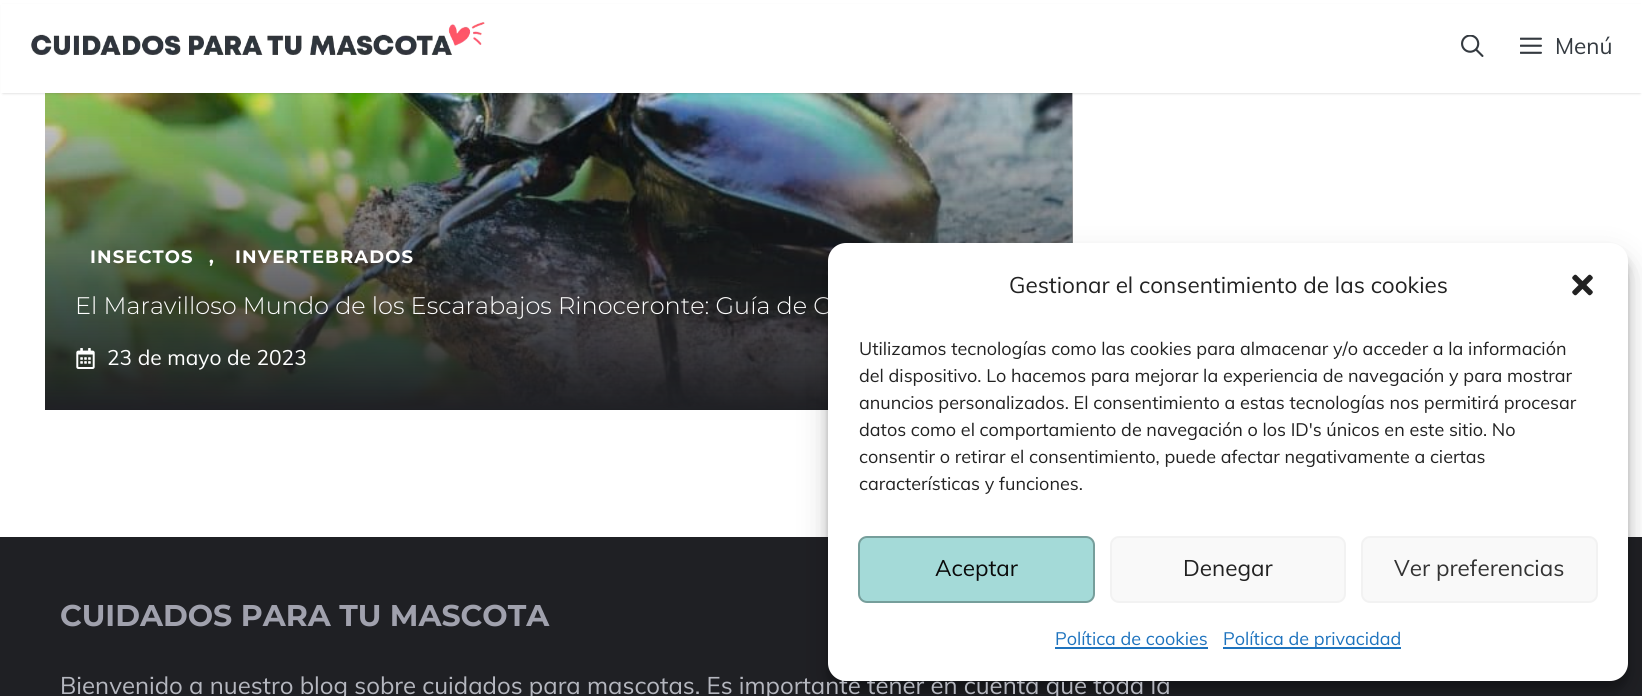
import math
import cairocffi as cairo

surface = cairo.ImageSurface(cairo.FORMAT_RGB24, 1642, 696)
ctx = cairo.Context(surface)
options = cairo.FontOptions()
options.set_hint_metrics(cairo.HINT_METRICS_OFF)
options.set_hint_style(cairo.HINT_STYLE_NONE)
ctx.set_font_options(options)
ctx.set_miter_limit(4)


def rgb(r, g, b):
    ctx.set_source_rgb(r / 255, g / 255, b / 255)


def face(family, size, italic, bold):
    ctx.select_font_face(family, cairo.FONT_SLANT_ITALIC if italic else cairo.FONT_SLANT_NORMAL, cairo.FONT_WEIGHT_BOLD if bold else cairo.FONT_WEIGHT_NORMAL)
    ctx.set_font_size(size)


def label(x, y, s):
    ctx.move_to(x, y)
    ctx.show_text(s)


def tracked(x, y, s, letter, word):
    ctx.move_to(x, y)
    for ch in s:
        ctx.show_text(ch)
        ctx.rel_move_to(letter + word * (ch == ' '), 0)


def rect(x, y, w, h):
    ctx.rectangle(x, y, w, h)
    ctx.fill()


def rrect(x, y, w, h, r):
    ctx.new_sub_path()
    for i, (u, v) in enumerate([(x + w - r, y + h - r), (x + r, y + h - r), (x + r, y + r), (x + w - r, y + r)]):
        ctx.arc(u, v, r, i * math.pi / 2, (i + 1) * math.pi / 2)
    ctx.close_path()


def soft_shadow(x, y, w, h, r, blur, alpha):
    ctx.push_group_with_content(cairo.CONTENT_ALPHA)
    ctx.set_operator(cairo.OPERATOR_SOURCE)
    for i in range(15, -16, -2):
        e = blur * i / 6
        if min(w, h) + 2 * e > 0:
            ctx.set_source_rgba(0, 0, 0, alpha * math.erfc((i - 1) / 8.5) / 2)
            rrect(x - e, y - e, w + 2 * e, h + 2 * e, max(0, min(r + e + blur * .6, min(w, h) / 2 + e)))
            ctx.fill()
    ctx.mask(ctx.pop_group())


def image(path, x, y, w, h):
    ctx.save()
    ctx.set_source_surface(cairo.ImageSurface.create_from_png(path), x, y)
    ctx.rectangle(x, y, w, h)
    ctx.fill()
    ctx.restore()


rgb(255, 255, 255)
ctx.paint()
image('image3.png', 45, 93, 1028, 315)
gradient = cairo.LinearGradient(559, 34, 559, 410)
gradient.add_color_stop_rgba(0, 0.122, 0.125, 0.141, 0)
gradient.add_color_stop_rgba(1, 0.122, 0.125, 0.141, 1)
ctx.set_source(gradient)
rect(45, 93, 1028, 317)
rgb(0, 0, 0)
soft_shadow(3, 6, 1637, 87, 0, 1.5, 0.2)
rgb(255, 255, 255)
rect(1, 4, 1641, 89)
image('image0.png', 31, 22, 454, 33)
image('image1.png', 1461, 35, 23, 22)
image('image2.png', 1520, 37, 22, 17)
face('Muli', 22.5, 0, 0)
rgb(52, 58, 64)
label(1555, 54, 'Menú')
face('Montserrat', 18, 0, 1)
rgb(255, 255, 255)
tracked(90, 263, 'INSECTOS', 1.1, 0)
tracked(209, 263, ',', 1.1, 0)
tracked(235, 263, 'INVERTEBRADOS', 1.1, 0)
face('Montserrat Light', 24, 0, 0)
label(75, 314, 'El Maravilloso Mundo de los Escarabajos Rinoceronte: Guía de C')
image('image4.png', 76, 348, 19, 21)
face('Muli', 21, 0, 0)
label(107, 365, '23 de mayo de 2023')
rgb(31, 32, 36)
rect(0, 537, 1642, 159)
rgb(0, 0, 0)
soft_shadow(828, 252, 800, 438, 18, 4.5, 0.23)
soft_shadow(828, 258, 800, 438, 18, 15, 0.19)
face('Muli', 24, 0, 0)
rgb(181, 183, 191)
label(60, 694, 'Bienvenido a nuestro blog sobre cuidados para mascotas. Es importante tener en cuenta que toda la')
rgb(255, 255, 255)
rrect(828, 243, 800, 438, 18)
ctx.fill()
face('Muli', 22.5, 0, 0)
rgb(34, 34, 34)
label(1009, 293, 'Gestionar el consentimiento de las cookies')
image('image5.png', 1572, 274, 21, 22)
face('Muli', 18, 0, 0)
label(859, 355, 'Utilizamos tecnologías como las cookies para almacenar y/o acceder a la información')
label(859, 382, 'del dispositivo. Lo hacemos para mejorar la experiencia de navegación y para mostrar')
label(859, 409, 'anuncios personalizados. El consentimiento a estas tecnologías nos permitirá procesar')
label(859, 436, 'datos como el comportamiento de navegación o los ID\'s únicos en este sitio. No')
label(859, 463, 'consentir o retirar el consentimiento, puede afectar negativamente a ciertas')
label(859, 490, 'características y funciones.')
rgb(164, 218, 216)
rrect(859, 537, 235, 65, 8)
ctx.fill_preserve()
rgb(118, 158, 155)
ctx.stroke()
face('Muli', 22.5, 0, 0)
rgb(10, 10, 10)
label(935, 576, 'Aceptar')
rgb(249, 249, 249)
rrect(1111, 537, 234, 65, 8)
ctx.fill_preserve()
rgb(242, 242, 242)
ctx.stroke()
rgb(34, 34, 34)
label(1183, 576, 'Denegar')
rgb(249, 249, 249)
rrect(1362, 537, 235, 65, 8)
ctx.fill_preserve()
rgb(242, 242, 242)
ctx.stroke()
rgb(51, 51, 51)
label(1394, 576, 'Ver preferencias')
face('Muli', 18, 0, 0)
rgb(30, 115, 190)
label(1055, 645, 'Política de cookies')
rect(1055, 647, 153, 2)
rect(1223, 647, 178, 2)
label(1223, 645, 'Política de privacidad')
face('Montserrat', 30, 0, 1)
rgb(160, 161, 173)
label(60, 626, 'CUIDADOS PARA TU MASCOTA')
surface.write_to_png('render.png')
